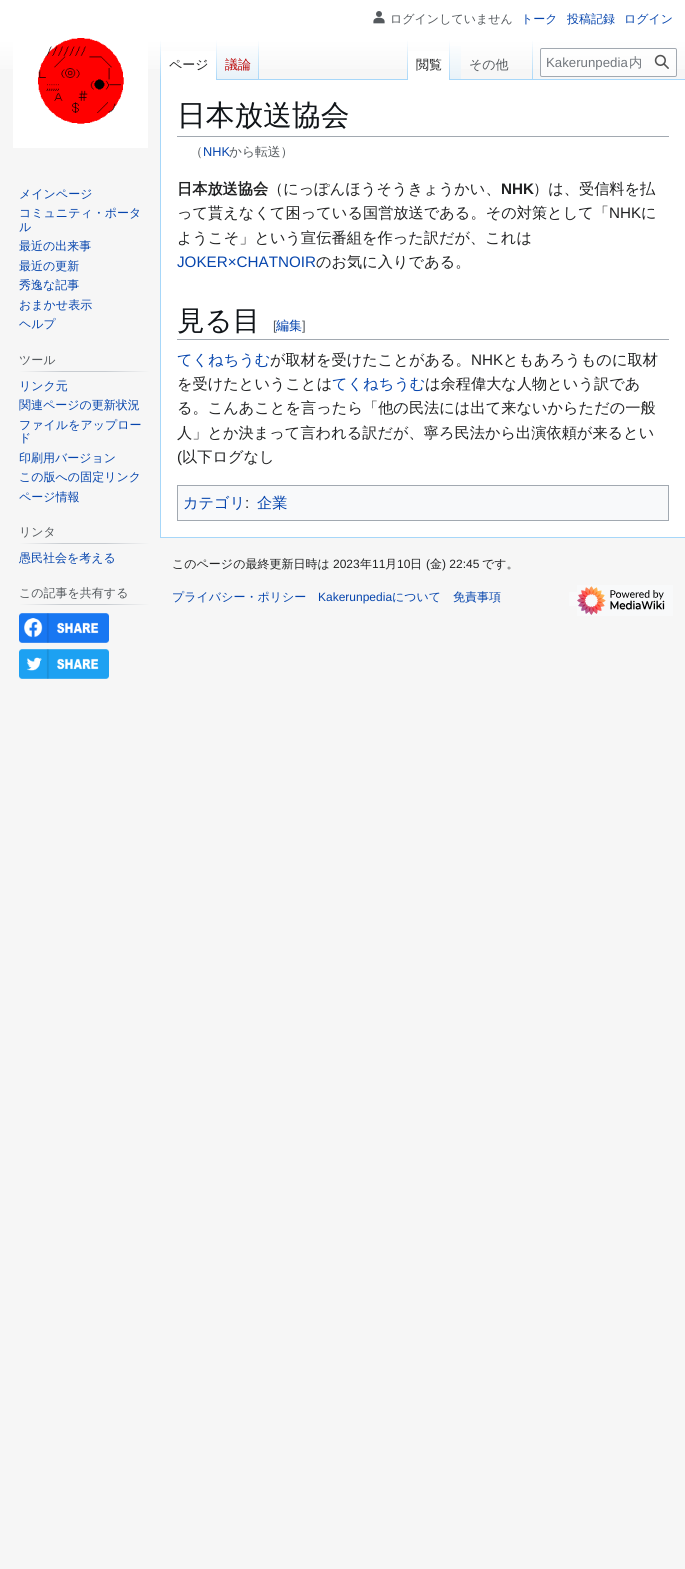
import math
import cairocffi as cairo

surface = cairo.ImageSurface(cairo.FORMAT_RGB24, 685, 1569)
ctx = cairo.Context(surface)
options = cairo.FontOptions()
options.set_hint_metrics(cairo.HINT_METRICS_OFF)
options.set_hint_style(cairo.HINT_STYLE_NONE)
ctx.set_font_options(options)
ctx.set_miter_limit(4)


def rgb(r, g, b):
    ctx.set_source_rgb(r / 255, g / 255, b / 255)


def face(family, size, italic, bold):
    ctx.select_font_face(family, cairo.FONT_SLANT_ITALIC if italic else cairo.FONT_SLANT_NORMAL, cairo.FONT_WEIGHT_BOLD if bold else cairo.FONT_WEIGHT_NORMAL)
    ctx.set_font_size(size)


def label(x, y, s):
    ctx.move_to(x, y)
    ctx.show_text(s)


def rect(x, y, w, h):
    ctx.rectangle(x, y, w, h)
    ctx.fill()


def rrect(x, y, w, h, r):
    ctx.new_sub_path()
    for i, (u, v) in enumerate([(x + w - r, y + h - r), (x + r, y + h - r), (x + r, y + r), (x + w - r, y + r)]):
        ctx.arc(u, v, r, i * math.pi / 2, (i + 1) * math.pi / 2)
    ctx.close_path()


def image(path, x, y, w, h):
    ctx.save()
    ctx.set_source_surface(cairo.ImageSurface.create_from_png(path), x, y)
    ctx.rectangle(x, y, w, h)
    ctx.fill()
    ctx.restore()


rgb(246, 246, 246)
ctx.paint()
gradient = cairo.LinearGradient(343, 0, 343, 80)
gradient.add_color_stop_rgba(0.5, 1, 1, 1, 1)
gradient.add_color_stop_rgba(1, 0.965, 0.965, 0.965, 1)
ctx.set_source(gradient)
rect(0, 0, 685, 69)
image('image0.png', 373, 11, 12, 13)
face('WenQuanYi Zen Hei Medium', 12, 0, 0)
rgb(84, 89, 93)
label(390, 23, 'ログインしていません')
rgb(6, 69, 173)
label(521, 23, 'トーク')
label(567, 23, '投稿記録')
label(624, 23, 'ログイン')
rgb(167, 215, 249)
rect(160, 537, 525, 1)
rect(160, 79, 1, 459)
gradient = cairo.LinearGradient(161, 40, 161, 80)
gradient.add_color_stop_rgba(0, 0.655, 0.843, 0.976, 0)
gradient.add_color_stop_rgba(1, 0.655, 0.843, 0.976, 1)
ctx.set_source(gradient)
rect(160, 40, 1, 40)
rgb(255, 255, 255)
rect(161, 51, 55, 29)
gradient = cairo.LinearGradient(217, 40, 217, 80)
gradient.add_color_stop_rgba(0, 1, 1, 1, 1)
gradient.add_color_stop_rgba(1, 0.655, 0.843, 0.976, 1)
ctx.set_source(gradient)
rect(216, 40, 1, 40)
face('WenQuanYi Zen Hei Medium', 13, 0, 0)
rgb(32, 33, 34)
label(169, 69, 'ページ')
gradient = cairo.LinearGradient(238, 80, 238, 40)
gradient.add_color_stop_rgba(0, 0.467, 0.757, 0.965, 1)
gradient.add_color_stop_rgba(0.03, 0.91, 0.949, 0.973, 1)
gradient.add_color_stop_rgba(1, 1, 1, 1, 1)
ctx.set_source(gradient)
rect(217, 46, 42, 34)
gradient = cairo.LinearGradient(259, 40, 259, 80)
gradient.add_color_stop_rgba(0, 0.655, 0.843, 0.976, 0)
gradient.add_color_stop_rgba(1, 0.655, 0.843, 0.976, 1)
ctx.set_source(gradient)
rect(258, 40, 1, 40)
rgb(186, 0, 0)
label(225, 69, '議論')
rgb(167, 215, 249)
rect(259, 79, 426, 1)
gradient = cairo.LinearGradient(408, 40, 408, 80)
gradient.add_color_stop_rgba(0, 0.655, 0.843, 0.976, 0)
gradient.add_color_stop_rgba(1, 0.655, 0.843, 0.976, 1)
ctx.set_source(gradient)
rect(407, 40, 1, 40)
rgb(255, 255, 255)
rect(408, 51, 41, 29)
gradient = cairo.LinearGradient(450, 40, 450, 80)
gradient.add_color_stop_rgba(0, 1, 1, 1, 1)
gradient.add_color_stop_rgba(1, 0.655, 0.843, 0.976, 1)
ctx.set_source(gradient)
rect(449, 40, 1, 40)
rgb(32, 33, 34)
label(416, 69, '閲覧')
gradient = cairo.LinearGradient(456, 80, 456, 40)
gradient.add_color_stop_rgba(0, 0.467, 0.757, 0.965, 1)
gradient.add_color_stop_rgba(0.03, 0.91, 0.949, 0.973, 1)
gradient.add_color_stop_rgba(1, 1, 1, 1, 1)
ctx.set_source(gradient)
rect(450, 46, 11, 33)
gradient = cairo.LinearGradient(533, 40, 533, 80)
gradient.add_color_stop_rgba(0, 0.655, 0.843, 0.976, 0)
gradient.add_color_stop_rgba(1, 0.655, 0.843, 0.976, 1)
ctx.set_source(gradient)
rect(532, 40, 1, 40)
rgb(84, 89, 93)
label(469, 69, 'その他')
ctx.set_source_rgba(1, 1, 1, 0.5)
rrect(540.5, 48.5, 136, 28, 1.5)
ctx.fill_preserve()
rgb(162, 169, 177)
ctx.set_line_width(1)
ctx.stroke()
face('Liberation Sans', 13.25, 0, 0)
rgb(114, 119, 125)
label(546, 67, 'Kakerunpedia')
face('WenQuanYi Zen Hei Medium', 13.25, 0, 0)
label(629, 67, '内')
image('image1.png', 654, 54, 15, 15)
image('image2.png', 13, 38, 135, 110)
face('WenQuanYi Zen Hei Medium', 12, 0, 0)
rgb(6, 69, 173)
label(19, 198, 'メインページ')
label(19, 217, 'コミュニティ・ポータ')
label(19, 231, 'ル')
label(19, 250, '最近の出来事')
label(19, 270, '最近の更新')
label(19, 289, '秀逸な記事')
label(19, 309, 'おまかせ表示')
label(19, 328, 'ヘルプ')
gradient = cairo.LinearGradient(19, 372, 150, 372)
gradient.add_color_stop_rgba(0, 0.965, 0.965, 0.965, 1)
gradient.add_color_stop_rgba(0.33, 0.784, 0.8, 0.82, 1)
gradient.add_color_stop_rgba(0.66, 0.784, 0.8, 0.82, 1)
gradient.add_color_stop_rgba(1, 0.965, 0.965, 0.965, 1)
ctx.set_source(gradient)
rect(19, 371, 131, 1)
rgb(84, 89, 93)
label(19, 364, 'ツール')
rgb(6, 69, 173)
label(19, 390, 'リンク元')
label(19, 409, '関連ページの更新状況')
label(19, 429, 'ファイルをアップロー')
label(19, 442, 'ド')
label(19, 462, '印刷用バージョン')
label(19, 481, 'この版への固定リンク')
label(19, 501, 'ページ情報')
gradient = cairo.LinearGradient(19, 544, 150, 544)
gradient.add_color_stop_rgba(0, 0.965, 0.965, 0.965, 1)
gradient.add_color_stop_rgba(0.33, 0.784, 0.8, 0.82, 1)
gradient.add_color_stop_rgba(0.66, 0.784, 0.8, 0.82, 1)
gradient.add_color_stop_rgba(1, 0.965, 0.965, 0.965, 1)
ctx.set_source(gradient)
rect(19, 543, 131, 1)
rgb(84, 89, 93)
label(19, 536, 'リンタ')
rgb(6, 69, 173)
label(19, 562, '愚民社会を考える')
gradient = cairo.LinearGradient(19, 605, 150, 605)
gradient.add_color_stop_rgba(0, 0.965, 0.965, 0.965, 1)
gradient.add_color_stop_rgba(0.33, 0.784, 0.8, 0.82, 1)
gradient.add_color_stop_rgba(0.66, 0.784, 0.8, 0.82, 1)
gradient.add_color_stop_rgba(1, 0.965, 0.965, 0.965, 1)
ctx.set_source(gradient)
rect(19, 604, 131, 1)
rgb(84, 89, 93)
label(19, 597, 'この記事を共有する')
image('image3.png', 19, 613, 90, 30)
image('image4.png', 19, 649, 90, 30)
rgb(255, 255, 255)
rect(161, 80, 524, 457)
rgb(162, 169, 177)
rect(177, 136, 492, 1)
face('WenQuanYi Zen Hei Medium', 28.75, 0, 0)
rgb(16, 20, 24)
label(177, 125, '日本放送協会')
face('WenQuanYi Zen Hei Medium', 12.75, 0, 0)
rgb(84, 89, 93)
label(190, 156, '（')
face('Liberation Sans', 12.75, 0, 0)
rgb(6, 69, 173)
label(203, 156, 'NHK')
face('WenQuanYi Zen Hei Medium', 12.75, 0, 0)
rgb(84, 89, 93)
label(229, 156, 'から転送）')
face('WenQuanYi Zen Hei', 15.2, 0, 1)
rgb(32, 33, 34)
label(177, 194, '日本放送協会')
face('WenQuanYi Zen Hei Medium', 15.2, 0, 0)
label(268, 194, '（にっぽんほうそうきょうかい、')
face('Liberation Sans', 15.2, 0, 1)
label(501, 194, 'NHK')
face('WenQuanYi Zen Hei Medium', 15.2, 0, 0)
label(533, 194, '）は、受信料を払')
label(177, 218, 'って貰えなくて困っている国営放送である。その対策として「')
face('Liberation Sans', 15.2, 0, 0)
label(609, 218, 'NHK')
face('WenQuanYi Zen Hei Medium', 15.2, 0, 0)
label(641, 218, 'に')
label(177, 243, 'ようこそ」という宣伝番組を作った訳だが、これは')
face('Liberation Sans', 15.2, 0, 0)
rgb(6, 69, 173)
label(177, 267, 'JOKER×CHATNOIR')
face('WenQuanYi Zen Hei Medium', 15.2, 0, 0)
rgb(32, 33, 34)
label(316, 267, 'のお気に入りである。')
rgb(162, 169, 177)
rect(177, 339, 492, 1)
face('WenQuanYi Zen Hei Medium', 27.5, 0, 0)
rgb(16, 20, 24)
label(177, 330, '見る目')
face('Liberation Sans', 13, 0, 0)
rgb(84, 89, 93)
label(273, 330, '[')
face('WenQuanYi Zen Hei Medium', 13, 0, 0)
rgb(6, 69, 173)
label(276, 330, '編集')
face('Liberation Sans', 13, 0, 0)
rgb(84, 89, 93)
label(302, 330, ']')
face('WenQuanYi Zen Hei Medium', 15.2, 0, 0)
rgb(6, 69, 173)
label(177, 365, 'てくねちうむ')
rgb(32, 33, 34)
label(270, 365, 'が取材を受けたことがある。')
face('Liberation Sans', 15.2, 0, 0)
label(471, 365, 'NHK')
face('WenQuanYi Zen Hei Medium', 15.2, 0, 0)
label(503, 365, 'ともあろうものに取材')
label(177, 389, 'を受けたということは')
rgb(6, 69, 173)
label(332, 389, 'てくねちうむ')
rgb(32, 33, 34)
label(425, 389, 'は余程偉大な人物という訳であ')
label(177, 413, 'る。こんあことを言ったら「他の民法には出て来ないからただの一般')
label(177, 438, '人」とか決まって言われる訳だが、寧ろ民法から出演依頼が来るとい')
face('Liberation Sans', 15.2, 0, 0)
label(177, 462, '(')
face('WenQuanYi Zen Hei Medium', 15.2, 0, 0)
label(182, 462, '以下ログなし')
rgb(248, 249, 250)
ctx.rectangle(177.5, 485.5, 491, 35)
ctx.fill_preserve()
rgb(162, 169, 177)
ctx.stroke()
rgb(6, 69, 173)
label(183, 508, 'カテゴリ')
face('Liberation Sans', 15.2, 0, 0)
rgb(32, 33, 34)
label(245, 508, ':')
face('WenQuanYi Zen Hei Medium', 15.2, 0, 0)
rgb(6, 69, 173)
label(257, 508, '企業')
face('WenQuanYi Zen Hei Medium', 12, 0, 0)
rgb(32, 33, 34)
label(172, 568, 'このページの最終更新日時は')
face('Liberation Sans', 12, 0, 0)
label(333, 568, '2023')
face('WenQuanYi Zen Hei Medium', 12, 0, 0)
label(360, 568, '年')
face('Liberation Sans', 12, 0, 0)
label(372, 568, '11')
face('WenQuanYi Zen Hei Medium', 12, 0, 0)
label(385, 568, '月')
face('Liberation Sans', 12, 0, 0)
label(397, 568, '10')
face('WenQuanYi Zen Hei Medium', 12, 0, 0)
label(410, 568, '日')
face('Liberation Sans', 12, 0, 0)
label(426, 568, '(')
face('WenQuanYi Zen Hei Medium', 12, 0, 0)
label(430, 568, '金')
face('Liberation Sans', 12, 0, 0)
label(442, 568, ') 22:45')
face('WenQuanYi Zen Hei Medium', 12, 0, 0)
label(482, 568, 'です。')
rgb(6, 69, 173)
label(172, 601, 'プライバシー・ポリシー')
face('Liberation Sans', 12, 0, 0)
label(318, 601, 'Kakerunpedia')
face('WenQuanYi Zen Hei Medium', 12, 0, 0)
label(392, 601, 'について')
label(453, 601, '免責事項')
rgb(248, 249, 250)
rect(577, 585, 96, 31)
rect(569, 592, 8, 14)
image('image5.png', 577, 586, 88, 29)
surface.write_to_png('render.png')
